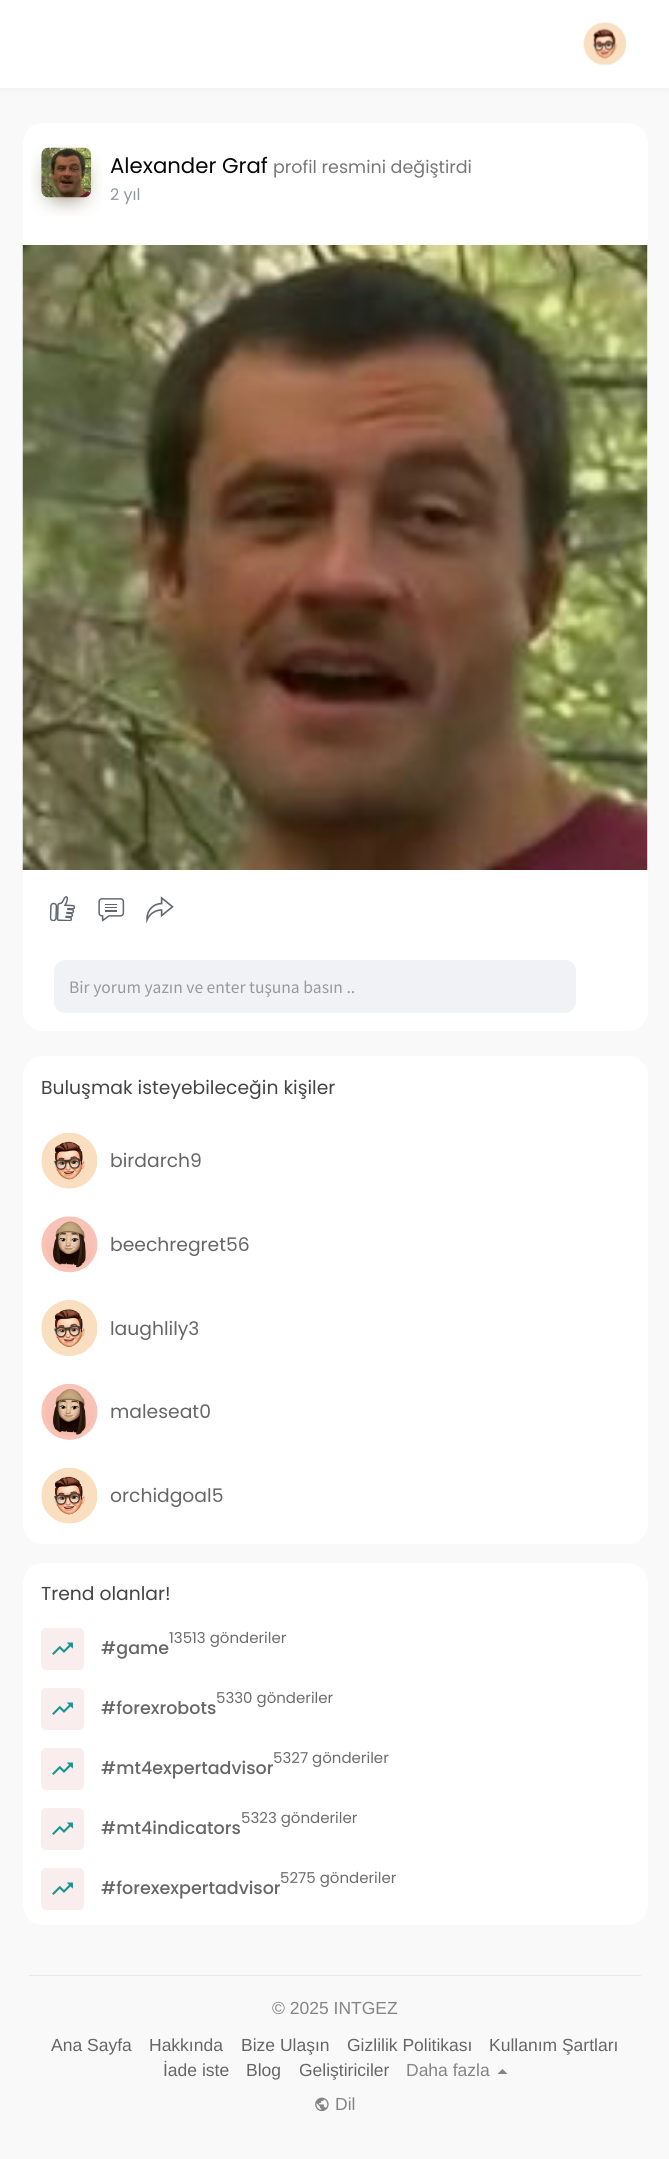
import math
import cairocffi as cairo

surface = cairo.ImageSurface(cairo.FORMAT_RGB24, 669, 2159)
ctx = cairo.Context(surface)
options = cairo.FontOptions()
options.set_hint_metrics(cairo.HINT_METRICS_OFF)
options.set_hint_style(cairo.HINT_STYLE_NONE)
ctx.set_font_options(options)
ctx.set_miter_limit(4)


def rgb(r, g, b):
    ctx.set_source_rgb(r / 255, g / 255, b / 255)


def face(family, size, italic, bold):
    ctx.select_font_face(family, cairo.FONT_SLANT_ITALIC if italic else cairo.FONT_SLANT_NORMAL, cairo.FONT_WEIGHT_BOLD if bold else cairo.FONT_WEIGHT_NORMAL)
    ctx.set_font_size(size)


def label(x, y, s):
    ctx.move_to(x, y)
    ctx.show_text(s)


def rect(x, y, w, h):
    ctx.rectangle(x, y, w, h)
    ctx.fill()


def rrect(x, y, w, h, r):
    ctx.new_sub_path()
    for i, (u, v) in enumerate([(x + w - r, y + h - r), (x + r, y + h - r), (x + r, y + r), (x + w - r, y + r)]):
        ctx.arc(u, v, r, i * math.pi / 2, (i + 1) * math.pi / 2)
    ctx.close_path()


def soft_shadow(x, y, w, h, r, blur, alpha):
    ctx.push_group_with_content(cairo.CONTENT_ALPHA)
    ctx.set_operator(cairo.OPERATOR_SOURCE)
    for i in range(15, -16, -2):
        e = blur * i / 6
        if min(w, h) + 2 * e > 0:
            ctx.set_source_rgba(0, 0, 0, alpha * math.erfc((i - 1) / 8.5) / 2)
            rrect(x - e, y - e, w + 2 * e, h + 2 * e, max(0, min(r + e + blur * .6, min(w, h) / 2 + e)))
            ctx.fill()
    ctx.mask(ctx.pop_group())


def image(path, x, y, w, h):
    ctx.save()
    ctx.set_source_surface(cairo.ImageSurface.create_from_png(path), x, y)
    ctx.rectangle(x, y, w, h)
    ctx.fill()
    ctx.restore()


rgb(249, 249, 249)
ctx.paint()
rgb(0, 0, 0)
soft_shadow(0, 1, 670, 88, 0, 4, 0.05)
rgb(255, 255, 255)
rect(0, 0, 669, 88)
image('image0.png', 583, 22, 44, 44)
rrect(23, 123, 625, 908, 20)
ctx.fill()
image('image1.png', 31, 145, 71, 71)
image('image2.png', 41, 147, 51, 51)
face('Poppins', 21.25, 0, 0)
rgb(5, 5, 5)
label(110, 173, 'Alexander Graf')
face('Poppins', 17.5, 0, 0)
rgb(119, 119, 119)
label(273, 173, 'profil resmini değiştirdi')
face('Poppins', 16, 0, 0)
rgb(145, 151, 163)
label(110, 200, '2 yıl')
image('image3.png', 22, 245, 626, 625)
image('image4.png', 50, 896, 25, 25)
image('image5.png', 98, 898, 27, 24)
image('image6.png', 146, 896, 28, 28)
rgb(240, 242, 245)
rrect(54, 960, 522, 53, 11)
ctx.fill()
face('Source Sans Pro', 17.5, 0, 0)
rgb(153, 153, 153)
label(69, 993, 'Bir yorum yazın ve enter tuşuna basın ..')
rgb(255, 255, 255)
rrect(23, 1056, 625, 488, 20)
ctx.fill()
face('Poppins', 18.75, 0, 0)
rgb(68, 68, 68)
label(41, 1094, 'Buluşmak isteyebileceğin kişiler')
image('image7.png', 41, 1132, 57, 57)
rgb(102, 102, 102)
label(110, 1167, 'birdarch9')
image('image8.png', 41, 1216, 57, 57)
label(110, 1251, 'beechregret56')
image('image9.png', 41, 1300, 57, 56)
label(110, 1335, 'laughlily3')
image('image10.png', 41, 1384, 57, 56)
label(110, 1418, 'maleseat0')
image('image7.png', 41, 1467, 57, 57)
label(110, 1502, 'orchidgoal5')
rgb(255, 255, 255)
rrect(23, 1563, 625, 362, 20)
ctx.fill()
rgb(68, 68, 68)
label(41, 1600, 'Trend olanlar!')
rgb(249, 237, 238)
rrect(41, 1628, 43, 42, 5)
ctx.fill()
face('Poppins Medium', 17.5, 0, 0)
rgb(102, 102, 102)
label(101, 1654, '#game')
image('image11.png', 52, 1642, 21, 13)
face('Poppins', 15, 0, 0)
rgb(108, 108, 108)
label(169, 1643, '13513 gönderiler')
rgb(249, 237, 238)
rrect(41, 1688, 43, 42, 5)
ctx.fill()
face('Poppins Medium', 17.5, 0, 0)
rgb(102, 102, 102)
label(101, 1714, '#forexrobots')
image('image11.png', 52, 1702, 21, 13)
face('Poppins', 15, 0, 0)
rgb(108, 108, 108)
label(216, 1703, '5330 gönderiler')
rgb(249, 237, 238)
rrect(41, 1748, 43, 42, 5)
ctx.fill()
face('Poppins Medium', 17.5, 0, 0)
rgb(102, 102, 102)
label(101, 1774, '#mt4expertadvisor')
image('image11.png', 52, 1762, 21, 13)
face('Poppins', 15, 0, 0)
rgb(108, 108, 108)
label(273, 1763, '5327 gönderiler')
rgb(249, 237, 238)
rrect(41, 1808, 43, 42, 5)
ctx.fill()
face('Poppins Medium', 17.5, 0, 0)
rgb(102, 102, 102)
label(101, 1834, '#mt4indicators')
image('image11.png', 52, 1822, 21, 13)
face('Poppins', 15, 0, 0)
rgb(108, 108, 108)
label(241, 1823, '5323 gönderiler')
rgb(249, 237, 238)
rrect(41, 1868, 43, 42, 5)
ctx.fill()
face('Poppins Medium', 17.5, 0, 0)
rgb(102, 102, 102)
label(101, 1894, '#forexexpertadvisor')
image('image11.png', 52, 1882, 21, 13)
face('Poppins', 15, 0, 0)
rgb(108, 108, 108)
label(280, 1883, '5275 gönderiler')
rgb(233, 233, 233)
rect(29, 1975, 612, 1)
face('Liberation Sans', 17.5, 0, 0)
rgb(133, 133, 133)
label(272, 2014, '© 2025 INTGEZ')
rgb(102, 102, 102)
label(51, 2051, 'Ana Sayfa')
label(149, 2051, 'Hakkında')
label(241, 2051, 'Bize Ulaşın')
label(347, 2051, 'Gizlilik Politikası')
label(489, 2051, 'Kullanım Şartları')
label(163, 2076, 'İade iste')
label(246, 2076, 'Blog')
label(299, 2076, 'Geliştiriciler')
rgb(133, 133, 133)
label(406, 2076, 'Daha fazla')
ctx.new_path()
ctx.move_to(507.5, 2074)
ctx.line_to(497.5, 2074)
ctx.line_to(502.5, 2069)
ctx.close_path()
ctx.fill()
image('image12.png', 315, 2097, 14, 15)
label(335, 2110, 'Dil')
surface.write_to_png('render.png')
